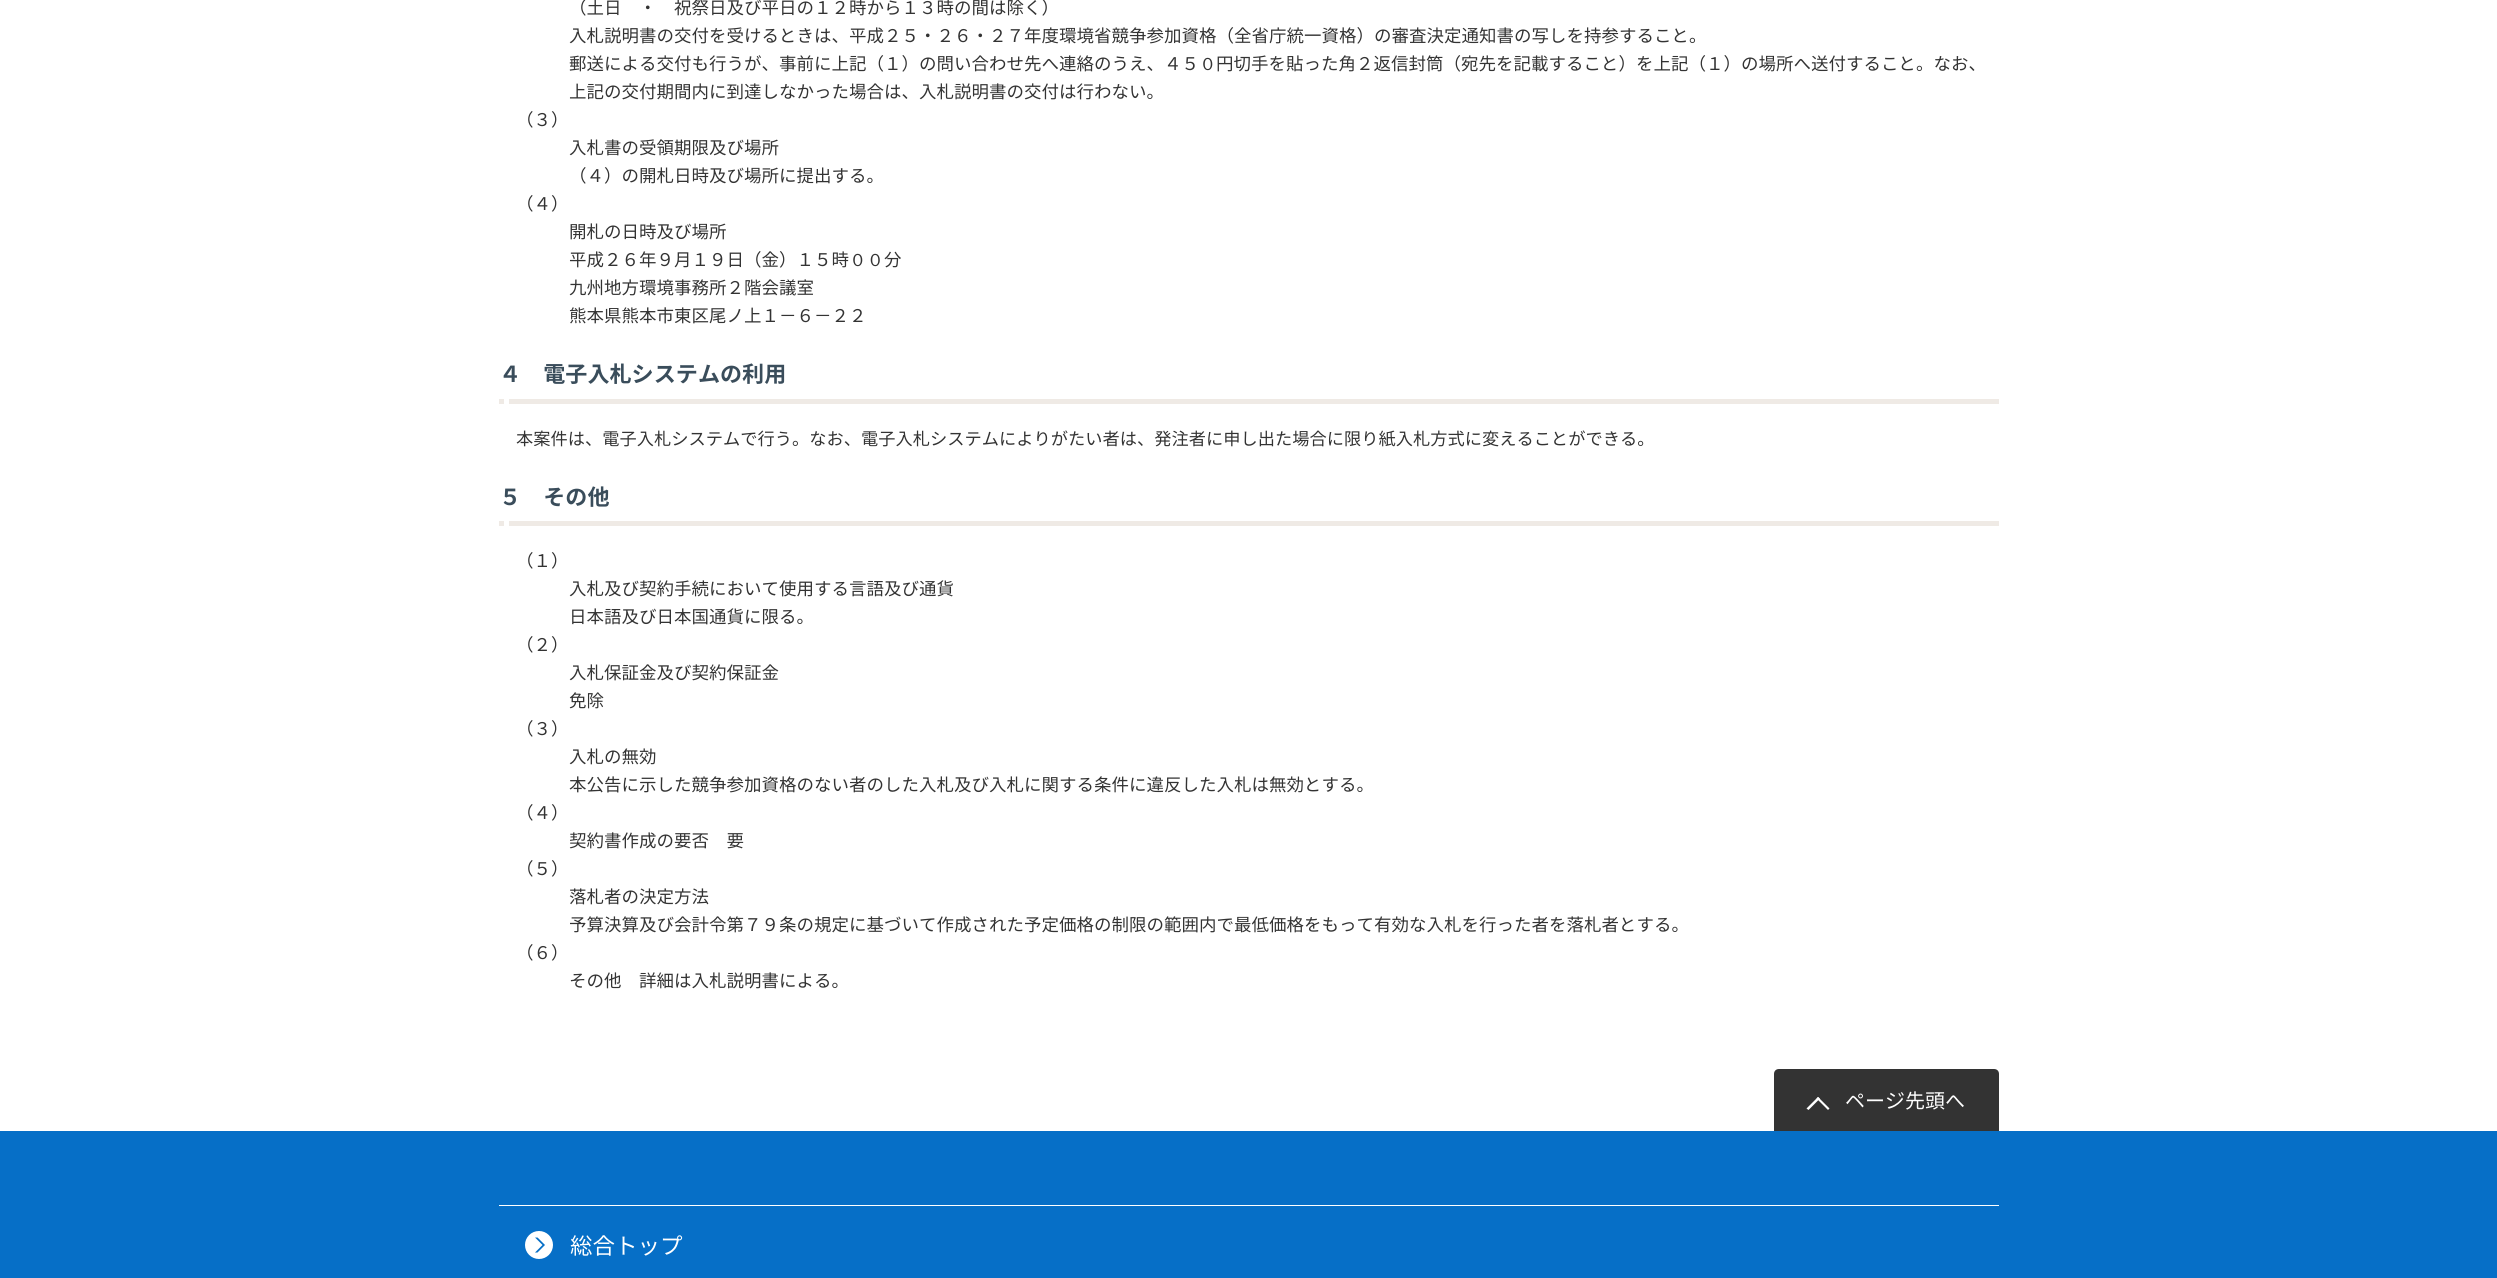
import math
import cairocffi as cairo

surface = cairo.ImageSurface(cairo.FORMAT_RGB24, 2497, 1278)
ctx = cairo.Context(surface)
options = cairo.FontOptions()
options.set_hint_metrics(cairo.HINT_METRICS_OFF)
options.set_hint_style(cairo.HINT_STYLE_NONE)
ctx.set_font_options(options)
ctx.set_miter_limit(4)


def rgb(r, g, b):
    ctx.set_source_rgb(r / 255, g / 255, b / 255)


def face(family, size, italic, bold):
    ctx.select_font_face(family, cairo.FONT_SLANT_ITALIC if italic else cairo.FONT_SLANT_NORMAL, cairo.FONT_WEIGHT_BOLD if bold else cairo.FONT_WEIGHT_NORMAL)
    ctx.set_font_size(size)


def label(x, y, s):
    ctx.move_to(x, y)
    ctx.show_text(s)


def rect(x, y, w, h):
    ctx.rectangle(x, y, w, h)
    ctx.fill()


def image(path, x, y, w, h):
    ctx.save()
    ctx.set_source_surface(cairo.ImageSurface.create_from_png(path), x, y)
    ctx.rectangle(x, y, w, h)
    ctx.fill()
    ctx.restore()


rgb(255, 255, 255)
ctx.paint()
face('Noto Sans CJK JP', 17.5, 0, 0)
rgb(51, 51, 51)
label(569, 14, '（土日　・　祝祭日及び平日の１２時から１３時の間は除く）')
label(569, 42, '入札説明書の交付を受けるときは、平成２５・２６・２７年度環境省競争参加資格（全省庁統一資格）の審査決定通知書の写しを持参すること。')
label(569, 70, '郵送による交付も行うが、事前に上記（１）の問い合わせ先へ連絡のうえ、４５')
face('WenQuanYi Zen Hei Medium', 17.5, 0, 0)
label(1199, 70, '０')
face('Noto Sans CJK JP', 17.5, 0, 0)
label(1216, 70, '円切手を貼った角２返信封筒（宛先を記載すること）を上記（１）の場所へ送付すること。なお、')
label(569, 98, '上記の交付期間内に到達しなかった場合は、入札説明書の交付は行わない。')
label(516, 126, '（３）')
label(569, 154, '入札書の受領期限及び場所')
label(569, 182, '（４）の開札日時及び場所に提出する。')
label(516, 210, '（４）')
label(569, 238, '開札の日時及び場所')
label(569, 266, '平成２６年９月１９日（金）１５時')
face('WenQuanYi Zen Hei Medium', 17.5, 0, 0)
label(849, 266, '００')
face('Noto Sans CJK JP', 17.5, 0, 0)
label(884, 266, '分')
label(569, 294, '九州地方環境事務所２階会議室')
label(569, 322, '熊本県熊本市東区尾ノ上１－６－２２')
rgb(239, 234, 229)
rect(499, 399, 1500, 5)
face('Noto Sans CJK JP', 22.1, 0, 1)
rgb(58, 77, 91)
label(499, 382, '４　電子入札システムの利用')
rgb(255, 255, 255)
rect(504, 399, 5, 5)
face('Noto Sans CJK JP', 17.25, 0, 0)
rgb(51, 51, 51)
label(516, 445, '本案件は、電子入札システムで行う。なお、電子入札システムによりがたい者は、発注者に申し出た場合に限り紙入札方式に変えることができる。')
rgb(239, 234, 229)
rect(499, 521, 1500, 5)
face('Noto Sans CJK JP', 22.1, 0, 1)
rgb(58, 77, 91)
label(499, 505, '５　その他')
rgb(255, 255, 255)
rect(504, 521, 5, 5)
face('Noto Sans CJK JP', 17.5, 0, 0)
rgb(51, 51, 51)
label(516, 567, '（１）')
label(569, 595, '入札及び契約手続において使用する言語及び通貨')
label(569, 623, '日本語及び日本国通貨に限る。')
label(516, 651, '（２）')
label(569, 679, '入札保証金及び契約保証金')
label(569, 707, '免除')
label(516, 735, '（３）')
label(569, 763, '入札の無効')
label(569, 791, '本公告に示した競争参加資格のない者のした入札及び入札に関する条件に違反した入札は無効とする。')
label(516, 819, '（４）')
label(569, 847, '契約書作成の要否 要')
label(516, 875, '（５）')
label(569, 903, '落札者の決定方法')
label(569, 931, '予算決算及び会計令第７９条の規定に基づいて作成された予定価格の制限の範囲内で最低価格をもって有効な入札を行った者を落札者とする。')
label(516, 959, '（６）')
label(569, 987, 'その他 詳細は入札説明書による。')
ctx.new_path()
ctx.move_to(1779, 1069)
ctx.line_to(1994, 1069)
ctx.curve_to(1997, 1069, 1999, 1071, 1999, 1074)
ctx.line_to(1999, 1131)
ctx.line_to(1774, 1131)
ctx.line_to(1774, 1074)
ctx.curve_to(1774, 1071, 1776, 1069, 1779, 1069)
ctx.close_path()
ctx.fill()
rgb(255, 255, 255)
ctx.new_path()
ctx.move_to(1818, 1097)
ctx.line_to(1829.5, 1108.5)
ctx.line_to(1828, 1110)
ctx.line_to(1816.5, 1098.5)
ctx.close_path()
ctx.fill()
ctx.new_path()
ctx.move_to(1818, 1097)
ctx.line_to(1820, 1098.5)
ctx.line_to(1808.5, 1110)
ctx.line_to(1806.5, 1108.5)
ctx.close_path()
ctx.fill()
face('Noto Sans CJK JP', 20, 0, 0)
label(1845, 1108, 'ページ先頭へ')
rgb(6, 111, 199)
rect(0, 1131, 2497, 147)
rgb(255, 255, 255)
rect(499, 1205, 1500, 1)
image('image0.png', 525, 1231, 28, 28)
face('Noto Sans CJK JP', 22.5, 0, 0)
label(570, 1254, '総合トップ')
surface.write_to_png('render.png')
